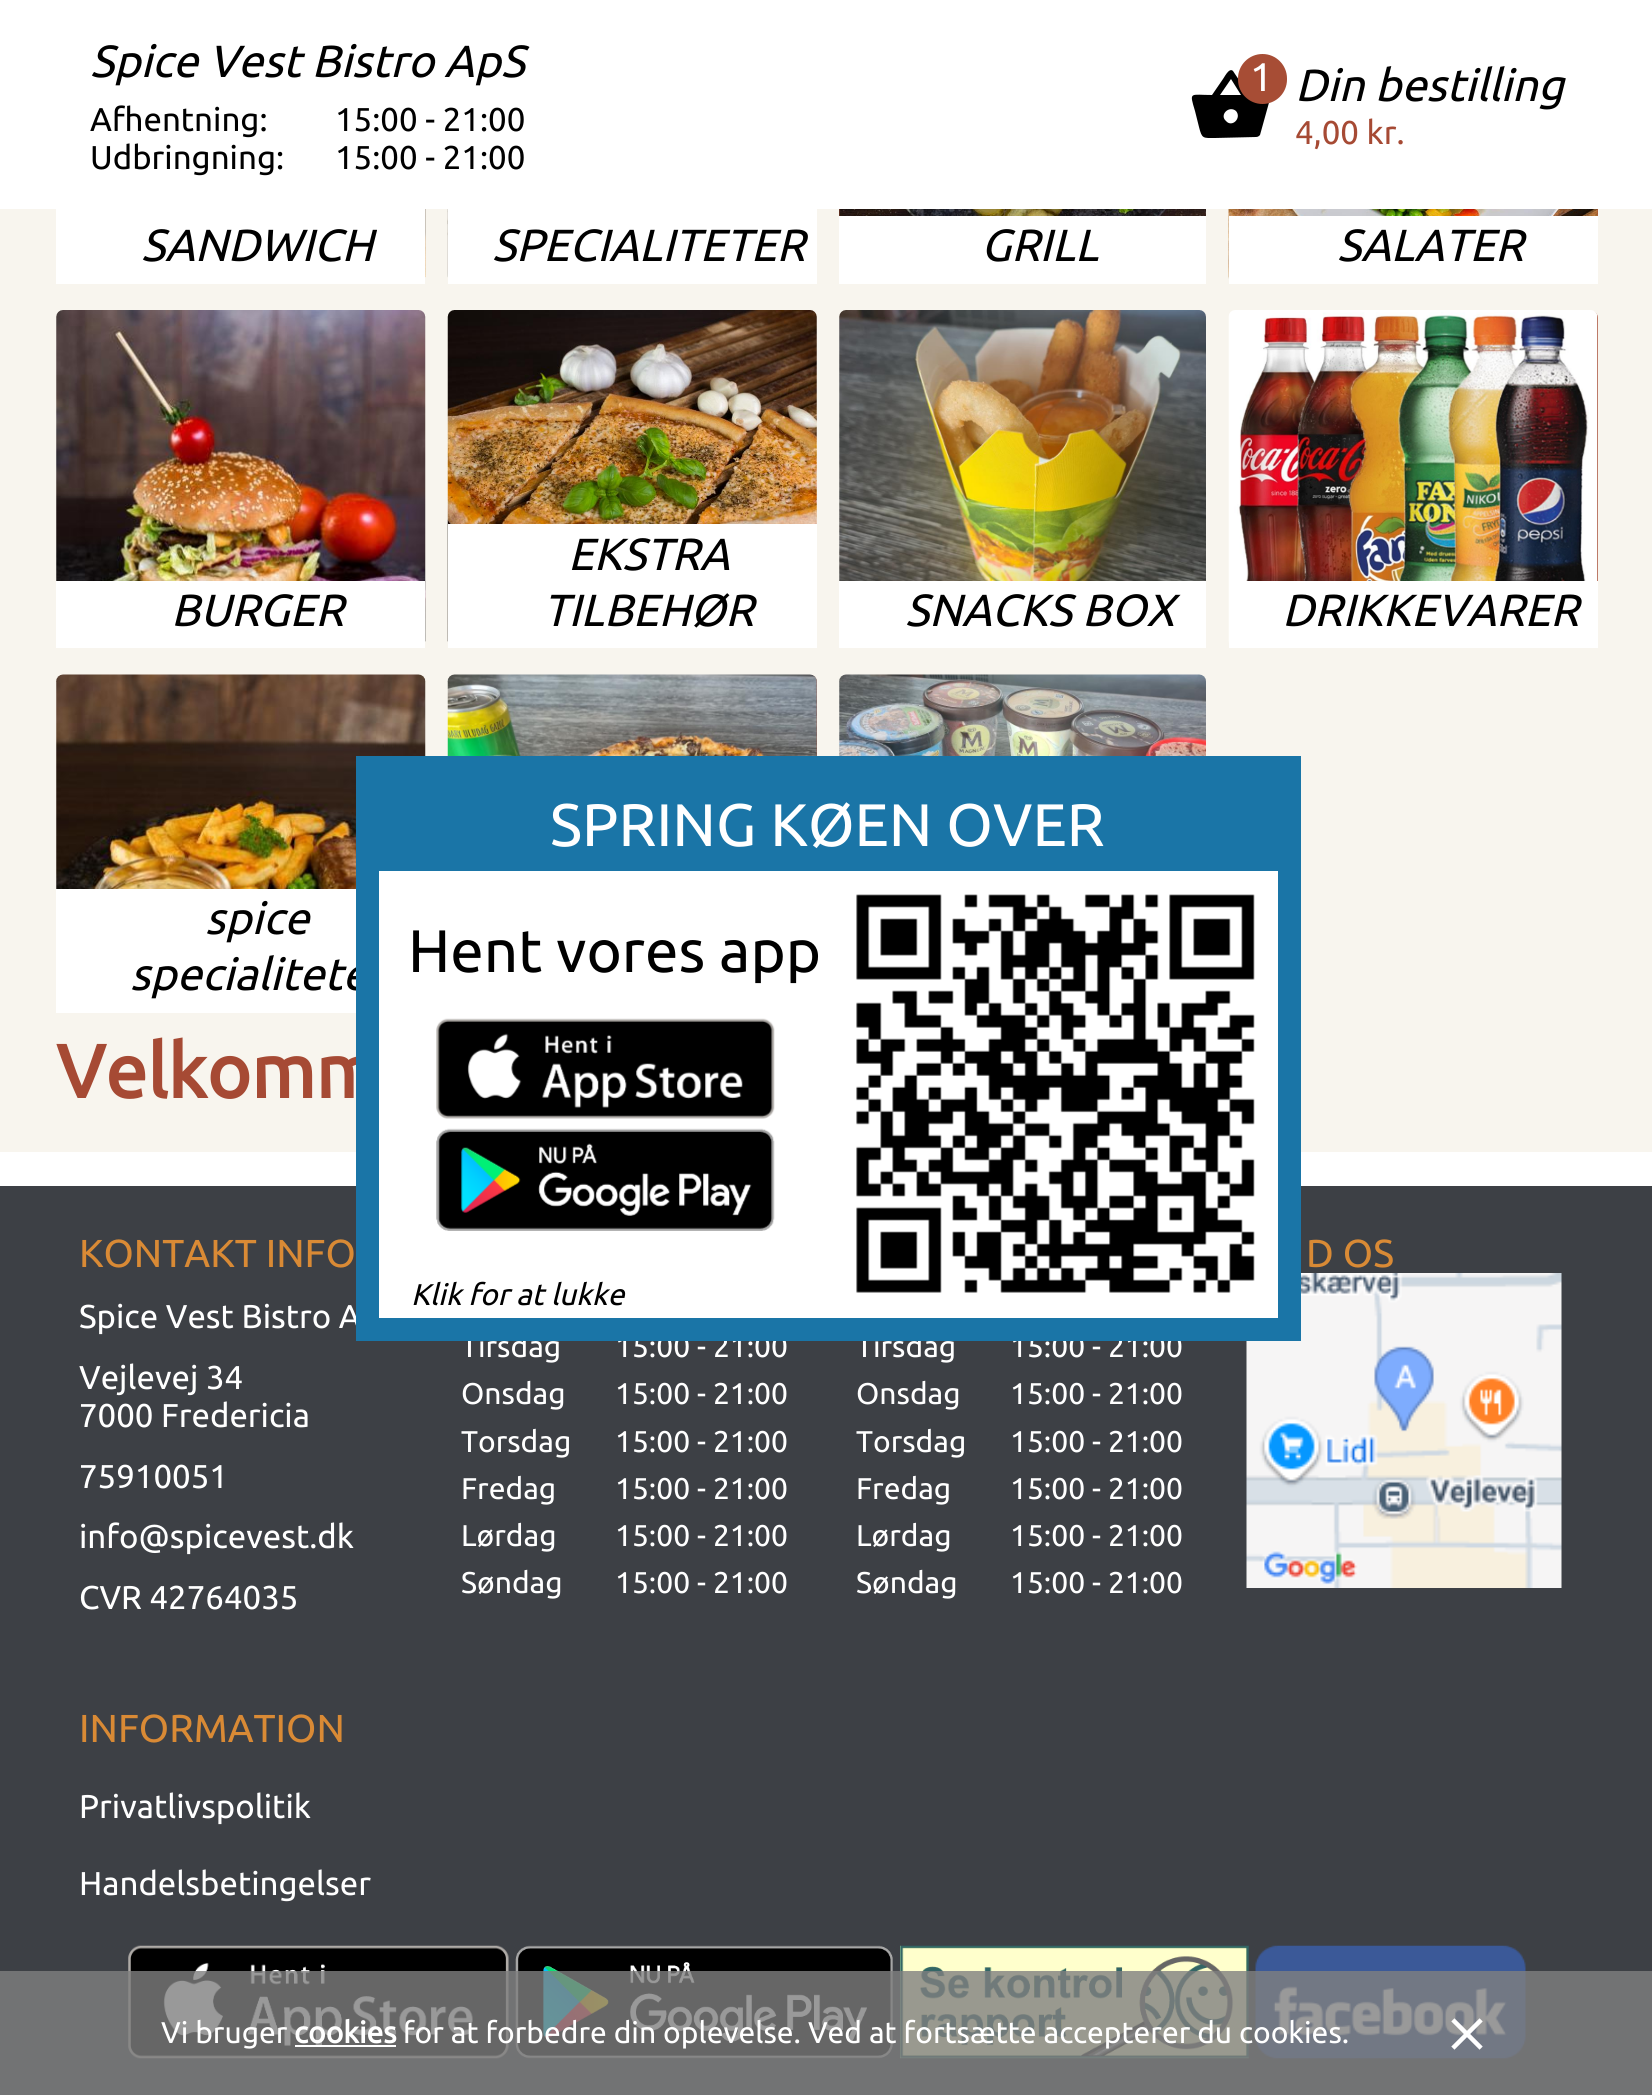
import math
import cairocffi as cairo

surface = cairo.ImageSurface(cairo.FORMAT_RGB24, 1652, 2095)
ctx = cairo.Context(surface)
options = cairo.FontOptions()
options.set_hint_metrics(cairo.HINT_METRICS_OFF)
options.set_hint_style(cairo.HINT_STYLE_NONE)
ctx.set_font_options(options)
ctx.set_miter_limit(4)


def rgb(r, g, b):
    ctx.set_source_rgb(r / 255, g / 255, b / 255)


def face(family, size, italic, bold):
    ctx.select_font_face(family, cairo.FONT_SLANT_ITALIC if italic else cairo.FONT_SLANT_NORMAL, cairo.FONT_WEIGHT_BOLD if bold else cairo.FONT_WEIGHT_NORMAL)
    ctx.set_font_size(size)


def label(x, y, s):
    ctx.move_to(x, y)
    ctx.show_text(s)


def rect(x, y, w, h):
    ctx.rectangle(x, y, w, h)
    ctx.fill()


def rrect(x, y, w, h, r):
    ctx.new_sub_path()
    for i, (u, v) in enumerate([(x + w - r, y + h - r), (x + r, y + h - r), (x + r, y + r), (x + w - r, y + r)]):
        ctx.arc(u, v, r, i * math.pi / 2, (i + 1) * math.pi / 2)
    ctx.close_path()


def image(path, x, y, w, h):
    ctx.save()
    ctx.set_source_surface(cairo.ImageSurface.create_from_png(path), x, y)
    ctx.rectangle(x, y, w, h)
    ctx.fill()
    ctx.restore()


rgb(255, 255, 255)
ctx.paint()
face('Ubuntu', 45, 1, 0)
rgb(0, 0, 0)
label(90, 77, 'Spice Vest Bistro ApS')
face('Ubuntu', 33, 0, 0)
label(90, 131, 'Afhentning:')
label(90, 169, 'Udbringning:')
label(335, 131, '15:00 - 21:00')
label(335, 169, '15:00 - 21:00')
ctx.new_path()
ctx.move_to(1226, 121)
ctx.curve_to(1232, 128, 1242, 118, 1236, 111)
ctx.curve_to(1229, 105, 1219, 115, 1226, 121)
ctx.close_path()
ctx.move_to(1220, 95)
ctx.line_to(1241, 95)
ctx.line_to(1231, 79)
ctx.close_path()
ctx.move_to(1249, 95)
ctx.curve_to(1253, 95, 1267, 94, 1269, 96)
ctx.line_to(1270, 99)
ctx.line_to(1260, 135)
ctx.curve_to(1259, 136, 1258, 137, 1256, 137)
ctx.line_to(1215, 138)
ctx.curve_to(1203, 138, 1202, 139, 1199, 127)
ctx.line_to(1195, 111)
ctx.curve_to(1189, 91, 1190, 95, 1212, 95)
ctx.line_to(1223, 79)
ctx.curve_to(1224, 78, 1229, 67, 1233, 71)
ctx.close_path()
ctx.fill()
rgb(167, 77, 53)
rrect(1238, 54, 49, 50, 24.5)
ctx.fill()
face('Ubuntu', 40, 0, 0)
rgb(255, 255, 255)
label(1250, 91, '1')
face('Ubuntu', 45, 1, 0)
rgb(0, 0, 0)
label(1295, 101, 'Din bestilling')
face('Ubuntu', 33, 0, 0)
rgb(166, 74, 52)
label(1295, 144, '4,00 kr.')
rgb(248, 245, 238)
rect(0, 209, 1652, 943)
image('image0.png', 425, 209, 1, 69)
rgb(255, 255, 255)
rect(56, 209, 369, 75)
face('Ubuntu', 45, 1, 0)
rgb(0, 0, 0)
label(141, 261, 'SANDWICH')
image('image1.png', 447, 209, 1, 69)
rgb(255, 255, 255)
rect(448, 209, 369, 75)
rgb(0, 0, 0)
label(492, 261, 'SPECIALITETER')
rgb(167, 77, 53)
rect(839, 209, 1, 7)
image('image2.png', 839, 209, 367, 7)
rgb(255, 255, 255)
rect(839, 216, 367, 68)
rgb(0, 0, 0)
label(981, 261, 'GRILL')
rgb(167, 77, 53)
rect(1597, 209, 1, 7)
image('image3.png', 1228, 209, 370, 70)
rgb(255, 255, 255)
rect(1229, 216, 369, 68)
rgb(0, 0, 0)
label(1337, 261, 'SALATER')
image('image4.png', 56, 310, 370, 332)
rgb(255, 255, 255)
rect(56, 581, 369, 67)
rgb(0, 0, 0)
label(171, 626, 'BURGER')
image('image5.png', 447, 310, 370, 332)
rgb(255, 255, 255)
rect(448, 524, 369, 124)
rgb(0, 0, 0)
label(568, 570, 'EKSTRA')
label(543, 626, 'TILBEHØR')
image('image6.png', 839, 310, 367, 271)
rgb(255, 255, 255)
rect(839, 581, 367, 67)
rgb(0, 0, 0)
label(905, 626, 'SNACKS BOX')
rgb(167, 77, 53)
rrect(1229, 311, 369, 337, 7)
ctx.fill()
image('image7.png', 1228, 310, 370, 333)
rgb(255, 255, 255)
rect(1229, 581, 369, 67)
rgb(0, 0, 0)
label(1282, 626, 'DRIKKEVARER')
rgb(167, 77, 53)
rrect(448, 675, 369, 338, 7)
ctx.fill()
image('image8.png', 447, 674, 370, 82)
image('image9.png', 839, 674, 367, 82)
image('image10.png', 56, 674, 370, 215)
rgb(255, 255, 255)
rect(56, 889, 300, 124)
rgb(0, 0, 0)
label(205, 934, 'spice')
label(130, 990, 'specialitete')
face('Ubuntu', 75, 0, 1)
rgb(166, 74, 52)
label(56, 1098, 'Velkomm')
rgb(61, 64, 69)
rect(0, 1186, 1652, 909)
image('image14.png', 1246, 1273, 316, 315)
rgb(255, 255, 255)
rect(379, 871, 899, 447)
face('Ubuntu', 33, 0, 0)
label(79, 1328, 'Spice Vest Bistro A')
face('Ubuntu', 30, 0, 0)
label(461, 1357, 'Tirsdag')
label(615, 1357, '15:00 - 21:00')
label(856, 1357, 'Tirsdag')
label(1010, 1357, '15:00 - 21:00')
ctx.rectangle(367.5, 767.5, 922, 562)
rgb(26, 117, 167)
ctx.set_line_width(23)
ctx.stroke()
rect(379, 779, 899, 92)
face('Ubuntu', 60, 0, 0)
rgb(255, 255, 255)
label(550, 846, 'SPRING KØEN OVER')
rgb(0, 0, 0)
label(408, 972, 'Hent vores app')
image('image11.png', 856, 894, 399, 399)
image('image12.png', 436, 1018, 339, 101)
image('image13.png', 436, 1128, 339, 103)
face('Ubuntu', 30, 1, 0)
label(411, 1305, 'Klik for at lukke')
face('Ubuntu', 39, 0, 0)
rgb(217, 138, 53)
label(79, 1267, 'KONTAKT INFO')
face('Ubuntu', 33, 0, 0)
rgb(255, 255, 255)
label(79, 1389, 'Vejlevej 34')
label(79, 1427, '7000 Fredericia')
label(79, 1488, '75910051')
label(79, 1548, 'info@spicevest.dk')
label(79, 1609, 'CVR 42764035')
face('Ubuntu', 39, 0, 0)
rgb(217, 138, 53)
label(1306, 1267, 'D OS')
face('Ubuntu', 30, 0, 0)
rgb(255, 255, 255)
label(461, 1404, 'Onsdag')
label(615, 1404, '15:00 - 21:00')
label(461, 1452, 'Torsdag')
label(615, 1452, '15:00 - 21:00')
label(461, 1499, 'Fredag')
label(615, 1499, '15:00 - 21:00')
label(461, 1546, 'Lørdag')
label(615, 1546, '15:00 - 21:00')
label(461, 1593, 'Søndag')
label(615, 1593, '15:00 - 21:00')
label(856, 1404, 'Onsdag')
label(1010, 1404, '15:00 - 21:00')
label(856, 1452, 'Torsdag')
label(1010, 1452, '15:00 - 21:00')
label(856, 1499, 'Fredag')
label(1010, 1499, '15:00 - 21:00')
label(856, 1546, 'Lørdag')
label(1010, 1546, '15:00 - 21:00')
label(856, 1593, 'Søndag')
label(1010, 1593, '15:00 - 21:00')
face('Ubuntu', 39, 0, 0)
rgb(217, 138, 53)
label(79, 1742, 'INFORMATION')
face('Ubuntu', 33, 0, 0)
rgb(255, 255, 255)
label(79, 1818, 'Privatlivspolitik')
label(79, 1895, 'Handelsbetingelser')
image('image15.png', 128, 1945, 381, 114)
image('image16.png', 515, 1945, 378, 114)
image('image17.png', 900, 1945, 349, 114)
image('image18.png', 1255, 1945, 271, 114)
ctx.set_source_rgba(0.502, 0.502, 0.502, 0.8)
rect(0, 1971, 1652, 124)
face('Ubuntu', 30, 0, 0)
rgb(255, 255, 255)
label(161, 2043, 'Vi bruger')
face('Ubuntu', 30, 0, 1)
label(294, 2043, 'cookies')
rect(295, 2045, 101, 2)
face('Ubuntu', 30, 0, 0)
label(403, 2043, 'for at forbedre din oplevelse. Ved at fortsætte accepterer du cookies.')
image('image19.png', 1451, 2018, 32, 32)
surface.write_to_png('render.png')
